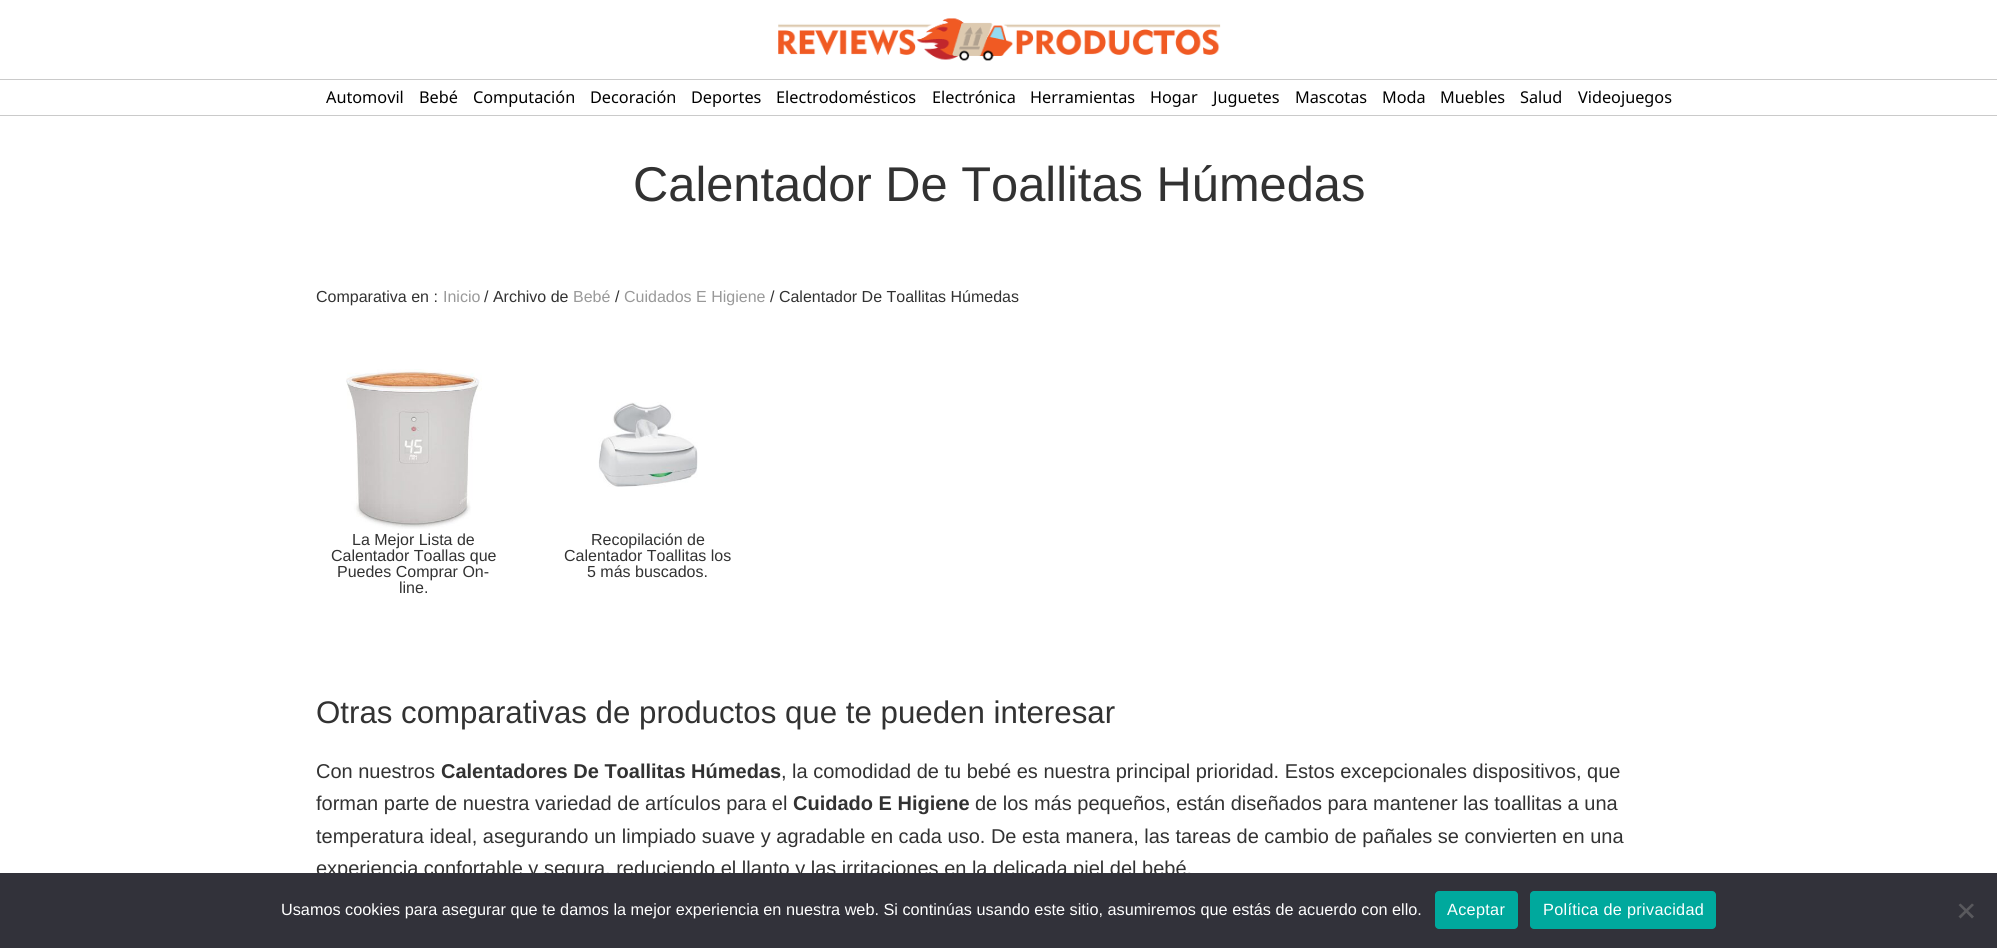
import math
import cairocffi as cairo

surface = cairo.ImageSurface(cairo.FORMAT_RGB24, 1997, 948)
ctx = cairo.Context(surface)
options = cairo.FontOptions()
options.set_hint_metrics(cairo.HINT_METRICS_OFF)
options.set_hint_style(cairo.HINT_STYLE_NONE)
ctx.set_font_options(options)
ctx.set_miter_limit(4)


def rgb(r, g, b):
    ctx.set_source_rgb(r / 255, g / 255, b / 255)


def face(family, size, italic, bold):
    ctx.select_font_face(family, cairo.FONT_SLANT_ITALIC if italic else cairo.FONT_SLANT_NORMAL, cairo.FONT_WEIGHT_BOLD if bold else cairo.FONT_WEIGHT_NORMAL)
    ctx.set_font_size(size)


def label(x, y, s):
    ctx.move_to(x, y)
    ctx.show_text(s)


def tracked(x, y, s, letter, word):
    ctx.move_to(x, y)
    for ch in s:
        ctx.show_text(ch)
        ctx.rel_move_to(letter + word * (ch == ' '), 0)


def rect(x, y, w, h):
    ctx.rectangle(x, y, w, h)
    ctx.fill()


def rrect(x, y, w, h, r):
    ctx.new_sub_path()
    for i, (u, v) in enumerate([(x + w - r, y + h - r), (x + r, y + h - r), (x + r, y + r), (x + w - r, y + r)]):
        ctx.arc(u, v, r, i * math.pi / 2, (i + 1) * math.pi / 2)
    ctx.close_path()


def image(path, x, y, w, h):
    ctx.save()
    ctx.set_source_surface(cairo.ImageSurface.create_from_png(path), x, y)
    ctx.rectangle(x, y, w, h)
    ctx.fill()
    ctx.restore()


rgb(255, 255, 255)
ctx.paint()
image('image0.png', 778, 18, 443, 43)
rgb(202, 202, 202)
rect(0, 79, 1997, 1)
rect(0, 115, 1997, 1)
face('Noto Sans', 16.25, 0, 0)
rgb(0, 0, 0)
label(326, 103, 'Automovil')
label(419, 103, 'Bebé')
label(473, 103, 'Computación')
label(590, 103, 'Decoración')
label(691, 103, 'Deportes')
label(776, 103, 'Electrodomésticos')
label(932, 103, 'Electrónica')
label(1030, 103, 'Herramientas')
label(1150, 103, 'Hogar')
label(1213, 103, 'Juguetes')
label(1295, 103, 'Mascotas')
label(1382, 103, 'Moda')
label(1440, 103, 'Muebles')
label(1520, 103, 'Salud')
label(1578, 103, 'Videojuegos')
face('Liberation Sans', 48.8, 0, 0)
rgb(50, 50, 50)
label(633, 201, 'Calentador De Toallitas Húmedas')
face('Liberation Sans', 16, 0, 0)
label(316, 302, 'Comparativa en :')
rgb(153, 153, 153)
label(443, 302, 'Inicio')
rgb(50, 50, 50)
label(484, 302, '/ Archivo de')
rgb(153, 153, 153)
label(573, 302, 'Bebé')
rgb(50, 50, 50)
label(615, 302, '/')
rgb(153, 153, 153)
label(624, 302, 'Cuidados E Higiene')
rgb(50, 50, 50)
label(770, 302, '/ Calentador De Toallitas Húmedas')
image('image1.png', 346, 369, 136, 160)
label(352, 545, 'La Mejor Lista de')
label(331, 561, 'Calentador Toallas que')
label(337, 577, 'Puedes Comprar On-')
label(399, 593, 'line.')
image('image2.png', 598, 402, 100, 85)
label(591, 545, 'Recopilación de')
label(564, 561, 'Calentador Toallitas los')
label(587, 577, '5 más buscados.')
face('Liberation Sans', 31.25, 0, 0)
label(316, 723, 'Otras comparativas de productos que te pueden interesar')
face('Liberation Sans', 20, 0, 0)
label(316, 778, 'Con nuestros')
face('Liberation Sans', 20, 0, 1)
label(441, 778, 'Calentadores De Toallitas Húmedas')
face('Liberation Sans', 20, 0, 0)
label(781, 778, ', la comodidad de tu bebé es nuestra principal prioridad. Estos excepcionales dispositivos, que')
label(316, 810, 'forman parte de nuestra variedad de artículos para el')
face('Liberation Sans', 20, 0, 1)
label(793, 810, 'Cuidado E Higiene')
face('Liberation Sans', 20, 0, 0)
label(975, 810, 'de los más pequeños, están diseñados para mantener las toallitas a una')
label(316, 843, 'temperatura ideal, asegurando un limpiado suave y agradable en cada uso. De esta manera, las tareas de cambio de pañales se convierten en una')
label(316, 875, 'experiencia confortable y segura, reduciendo el llanto y las irritaciones en la delicada piel del bebé.')
rgb(50, 50, 58)
rect(0, 873, 1997, 75)
face('Liberation Sans', 16.25, 0, 0)
rgb(255, 255, 255)
label(281, 915, 'Usamos cookies para asegurar que te damos la mejor experiencia en nuestra web. Si continúas usando este sitio, asumiremos que estás de acuerdo con ello.')
rgb(0, 169, 157)
rrect(1435, 891, 83, 38, 4)
ctx.fill()
rgb(255, 255, 255)
tracked(1447, 915, 'Aceptar', 0.3, 0)
rgb(0, 169, 157)
rrect(1530, 891, 186, 38, 4)
ctx.fill()
rgb(255, 255, 255)
tracked(1543, 915, 'Política de privacidad', 0.3, 0)
rgb(89, 89, 93)
ctx.new_path()
ctx.move_to(1972, 903.5)
ctx.line_to(1974, 905)
ctx.line_to(1960.5, 918.5)
ctx.line_to(1958.5, 916.5)
ctx.close_path()
ctx.fill()
ctx.new_path()
ctx.move_to(1958.5, 905)
ctx.line_to(1960.5, 903.5)
ctx.line_to(1974, 916.5)
ctx.line_to(1972, 918.5)
ctx.close_path()
ctx.fill()
surface.write_to_png('render.png')
